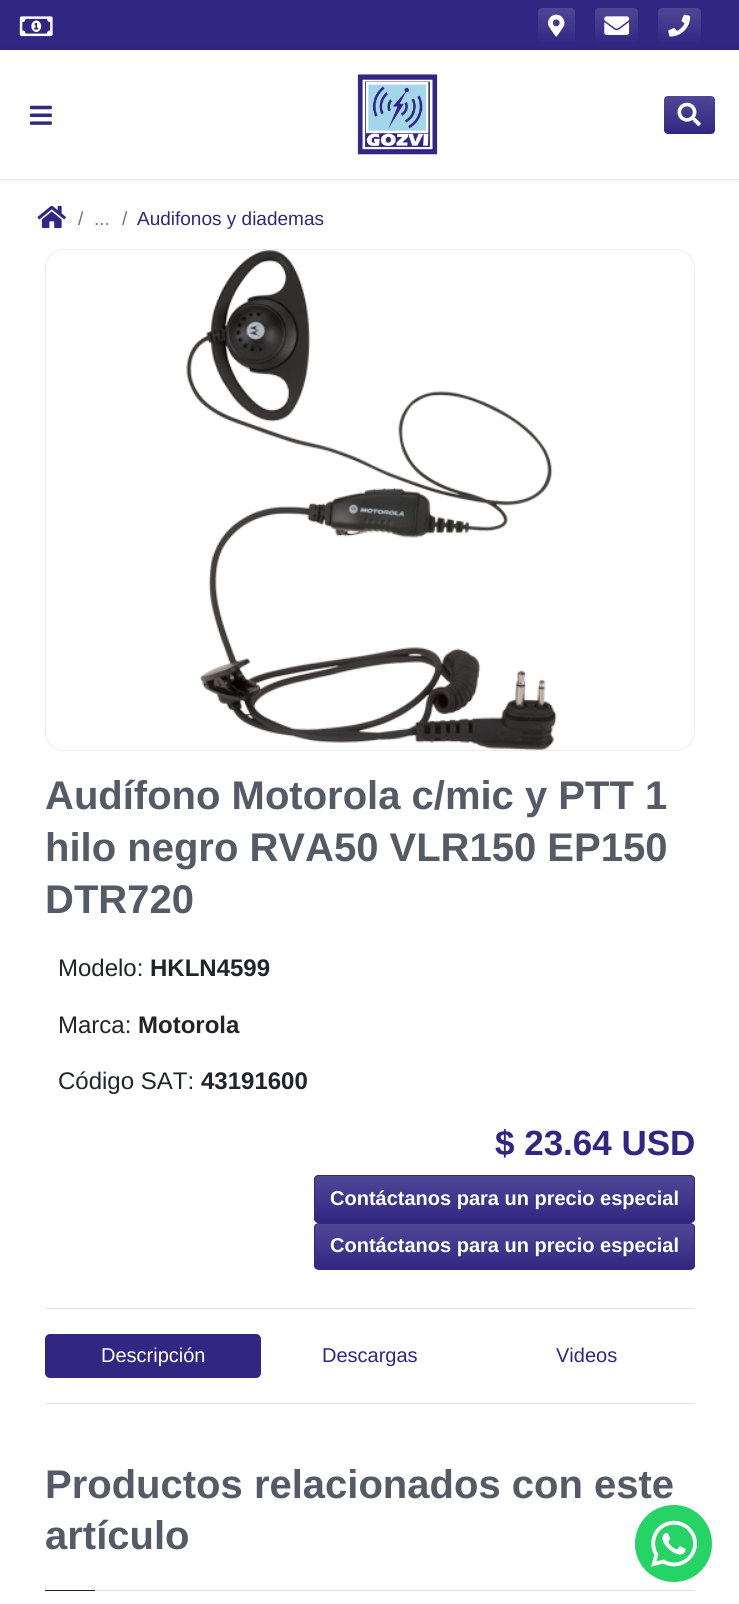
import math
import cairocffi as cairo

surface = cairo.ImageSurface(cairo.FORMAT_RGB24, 739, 1604)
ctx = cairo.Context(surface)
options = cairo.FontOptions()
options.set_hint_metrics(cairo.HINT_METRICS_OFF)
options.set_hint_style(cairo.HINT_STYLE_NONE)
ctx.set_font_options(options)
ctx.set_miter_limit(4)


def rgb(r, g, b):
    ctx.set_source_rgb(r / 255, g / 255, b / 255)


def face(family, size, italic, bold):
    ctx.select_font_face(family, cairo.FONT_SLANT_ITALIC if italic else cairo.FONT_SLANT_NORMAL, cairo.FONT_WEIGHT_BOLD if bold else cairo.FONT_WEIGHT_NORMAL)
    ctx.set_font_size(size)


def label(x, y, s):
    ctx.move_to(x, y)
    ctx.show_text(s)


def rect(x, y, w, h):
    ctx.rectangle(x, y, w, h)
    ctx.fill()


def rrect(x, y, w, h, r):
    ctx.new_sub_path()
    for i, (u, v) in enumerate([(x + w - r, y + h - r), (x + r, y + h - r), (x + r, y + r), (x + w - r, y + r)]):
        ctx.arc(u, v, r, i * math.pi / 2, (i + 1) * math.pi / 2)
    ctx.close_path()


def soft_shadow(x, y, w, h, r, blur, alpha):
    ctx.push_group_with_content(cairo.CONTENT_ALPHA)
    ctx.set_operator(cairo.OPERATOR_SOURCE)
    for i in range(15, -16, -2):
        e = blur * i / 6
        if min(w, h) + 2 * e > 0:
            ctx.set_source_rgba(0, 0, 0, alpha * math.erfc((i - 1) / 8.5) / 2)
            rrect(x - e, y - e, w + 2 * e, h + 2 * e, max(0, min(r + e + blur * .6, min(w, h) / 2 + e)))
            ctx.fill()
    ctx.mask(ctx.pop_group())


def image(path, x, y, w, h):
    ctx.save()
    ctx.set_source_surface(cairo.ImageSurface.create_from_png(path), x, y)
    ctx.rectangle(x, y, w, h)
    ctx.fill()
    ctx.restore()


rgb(255, 255, 255)
ctx.paint()
rgb(49, 39, 131)
rect(0, 0, 739, 50)
image('image0.png', 19, 16, 34, 21)
rgb(0, 0, 0)
soft_shadow(0, 50, 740, 129, 0, 3, 0.15)
gradient = cairo.LinearGradient(556, 7.5, 556, 44)
gradient.add_color_stop_rgba(0, 0.314, 0.278, 0.588, 1)
gradient.add_color_stop_rgba(1, 0.192, 0.153, 0.514, 1)
ctx.set_source(gradient)
rrect(538, 8, 37, 36, 4)
ctx.fill()
image('image1.png', 548, 14, 17, 23)
gradient = cairo.LinearGradient(616, 7.5, 616, 44)
gradient.add_color_stop_rgba(0, 0.314, 0.278, 0.588, 1)
gradient.add_color_stop_rgba(1, 0.192, 0.153, 0.514, 1)
ctx.set_source(gradient)
rrect(595, 8, 43, 36, 4)
ctx.fill()
image('image2.png', 604, 16, 26, 19)
gradient = cairo.LinearGradient(679, 7.5, 679, 44)
gradient.add_color_stop_rgba(0, 0.314, 0.278, 0.588, 1)
gradient.add_color_stop_rgba(1, 0.192, 0.153, 0.514, 1)
ctx.set_source(gradient)
rrect(658, 8, 43, 36, 4)
ctx.fill()
image('image3.png', 668, 14, 23, 23)
rgb(255, 255, 255)
rect(0, 50, 739, 129)
image('image4.png', 30, 105, 22, 20)
image('image5.png', 357, 74, 81, 81)
gradient = cairo.LinearGradient(689, 96, 689, 134)
gradient.add_color_stop_rgba(0, 0.314, 0.278, 0.588, 1)
gradient.add_color_stop_rgba(1, 0.192, 0.153, 0.514, 1)
ctx.set_source(gradient)
rrect(664, 96, 51, 38, 4)
ctx.fill()
image('image6.png', 677, 102, 24, 24)
image('image7.png', 37, 205, 29, 24)
face('Arimo', 19, 0, 0)
rgb(108, 117, 125)
label(78, 225, '/')
rgb(127, 127, 127)
label(94, 225, '...')
rgb(108, 117, 125)
label(122, 225, '/')
rgb(49, 39, 131)
label(137, 225, 'Audifonos y diademas')
rrect(45.5, 249.5, 649, 501, 18.5)
rgb(238, 238, 238)
ctx.set_line_width(1)
ctx.stroke()
image('image8.png', 186, 250, 371, 500)
face('Arimo', 40, 0, 1)
rgb(85, 91, 102)
label(45, 809, 'Audífono Motorola c/mic y PTT 1')
label(45, 861, 'hilo negro RVA50 VLR150 EP150')
label(45, 913, 'DTR720')
face('Arimo', 24, 0, 0)
rgb(33, 37, 41)
label(58, 976, 'Modelo:')
face('Arimo', 24, 0, 1)
label(150, 976, 'HKLN4599')
face('Arimo', 24, 0, 0)
label(58, 1033, 'Marca:')
face('Arimo', 24, 0, 1)
label(138, 1033, 'Motorola')
face('Arimo', 24, 0, 0)
label(58, 1089, 'Código SAT:')
face('Arimo', 24, 0, 1)
label(201, 1089, '43191600')
face('Arimo', 35, 0, 1)
rgb(49, 39, 131)
label(495, 1155, '$ 23.64 USD')
rrect(314, 1175, 381, 48, 5)
ctx.fill()
ctx.save()
rrect(314, 1175, 381, 48, 5)
ctx.clip()
gradient = cairo.LinearGradient(504, 1176, 504, 1221)
gradient.add_color_stop_rgba(0, 0.314, 0.278, 0.588, 1)
gradient.add_color_stop_rgba(1, 0.192, 0.153, 0.514, 1)
ctx.set_source(gradient)
rect(314, 1176, 381, 45)
ctx.restore()
rrect(314.5, 1175.5, 380, 47, 4.5)
ctx.stroke()
face('Arimo', 20, 0, 1)
rgb(255, 255, 255)
label(330, 1205, 'Contáctanos para un precio especial')
ctx.save()
rrect(314, 1223, 381, 47, 5)
ctx.clip()
gradient = cairo.LinearGradient(504, 1224, 504, 1269)
gradient.add_color_stop_rgba(0, 0.314, 0.278, 0.588, 1)
gradient.add_color_stop_rgba(1, 0.192, 0.153, 0.514, 1)
ctx.set_source(gradient)
rect(314, 1224, 381, 45)
ctx.restore()
rrect(314.5, 1223.5, 380, 46, 4.5)
rgb(49, 39, 131)
ctx.stroke()
rgb(255, 255, 255)
label(330, 1252, 'Contáctanos para un precio especial')
rgb(230, 230, 230)
rect(45, 1308, 650, 1)
rgb(49, 39, 131)
rrect(45, 1334, 216, 44, 5)
ctx.fill()
face('Arimo', 20, 0, 0)
rgb(255, 255, 255)
label(101, 1362, 'Descripción')
rgb(49, 39, 131)
label(322, 1362, 'Descargas')
label(556, 1362, 'Videos')
rgb(230, 230, 230)
rect(45, 1403, 650, 1)
rgb(225, 225, 225)
rect(95, 1590, 600, 1)
face('Arimo', 40, 0, 1)
rgb(85, 91, 102)
label(45, 1498, 'Productos relacionados con este')
label(45, 1549, 'artículo')
rgb(30, 30, 30)
rect(45, 1590, 50, 1)
rgb(37, 211, 102)
ctx.new_path()
ctx.move_to(674, 1505)
ctx.curve_to(652, 1505, 635, 1522, 635, 1544)
ctx.curve_to(635, 1565, 652, 1582, 674, 1582)
ctx.curve_to(695, 1582, 712, 1565, 712, 1544)
ctx.curve_to(712, 1522, 695, 1505, 674, 1505)
ctx.close_path()
ctx.fill()
image('image9.png', 651, 1520, 46, 47)
surface.write_to_png('render.png')
